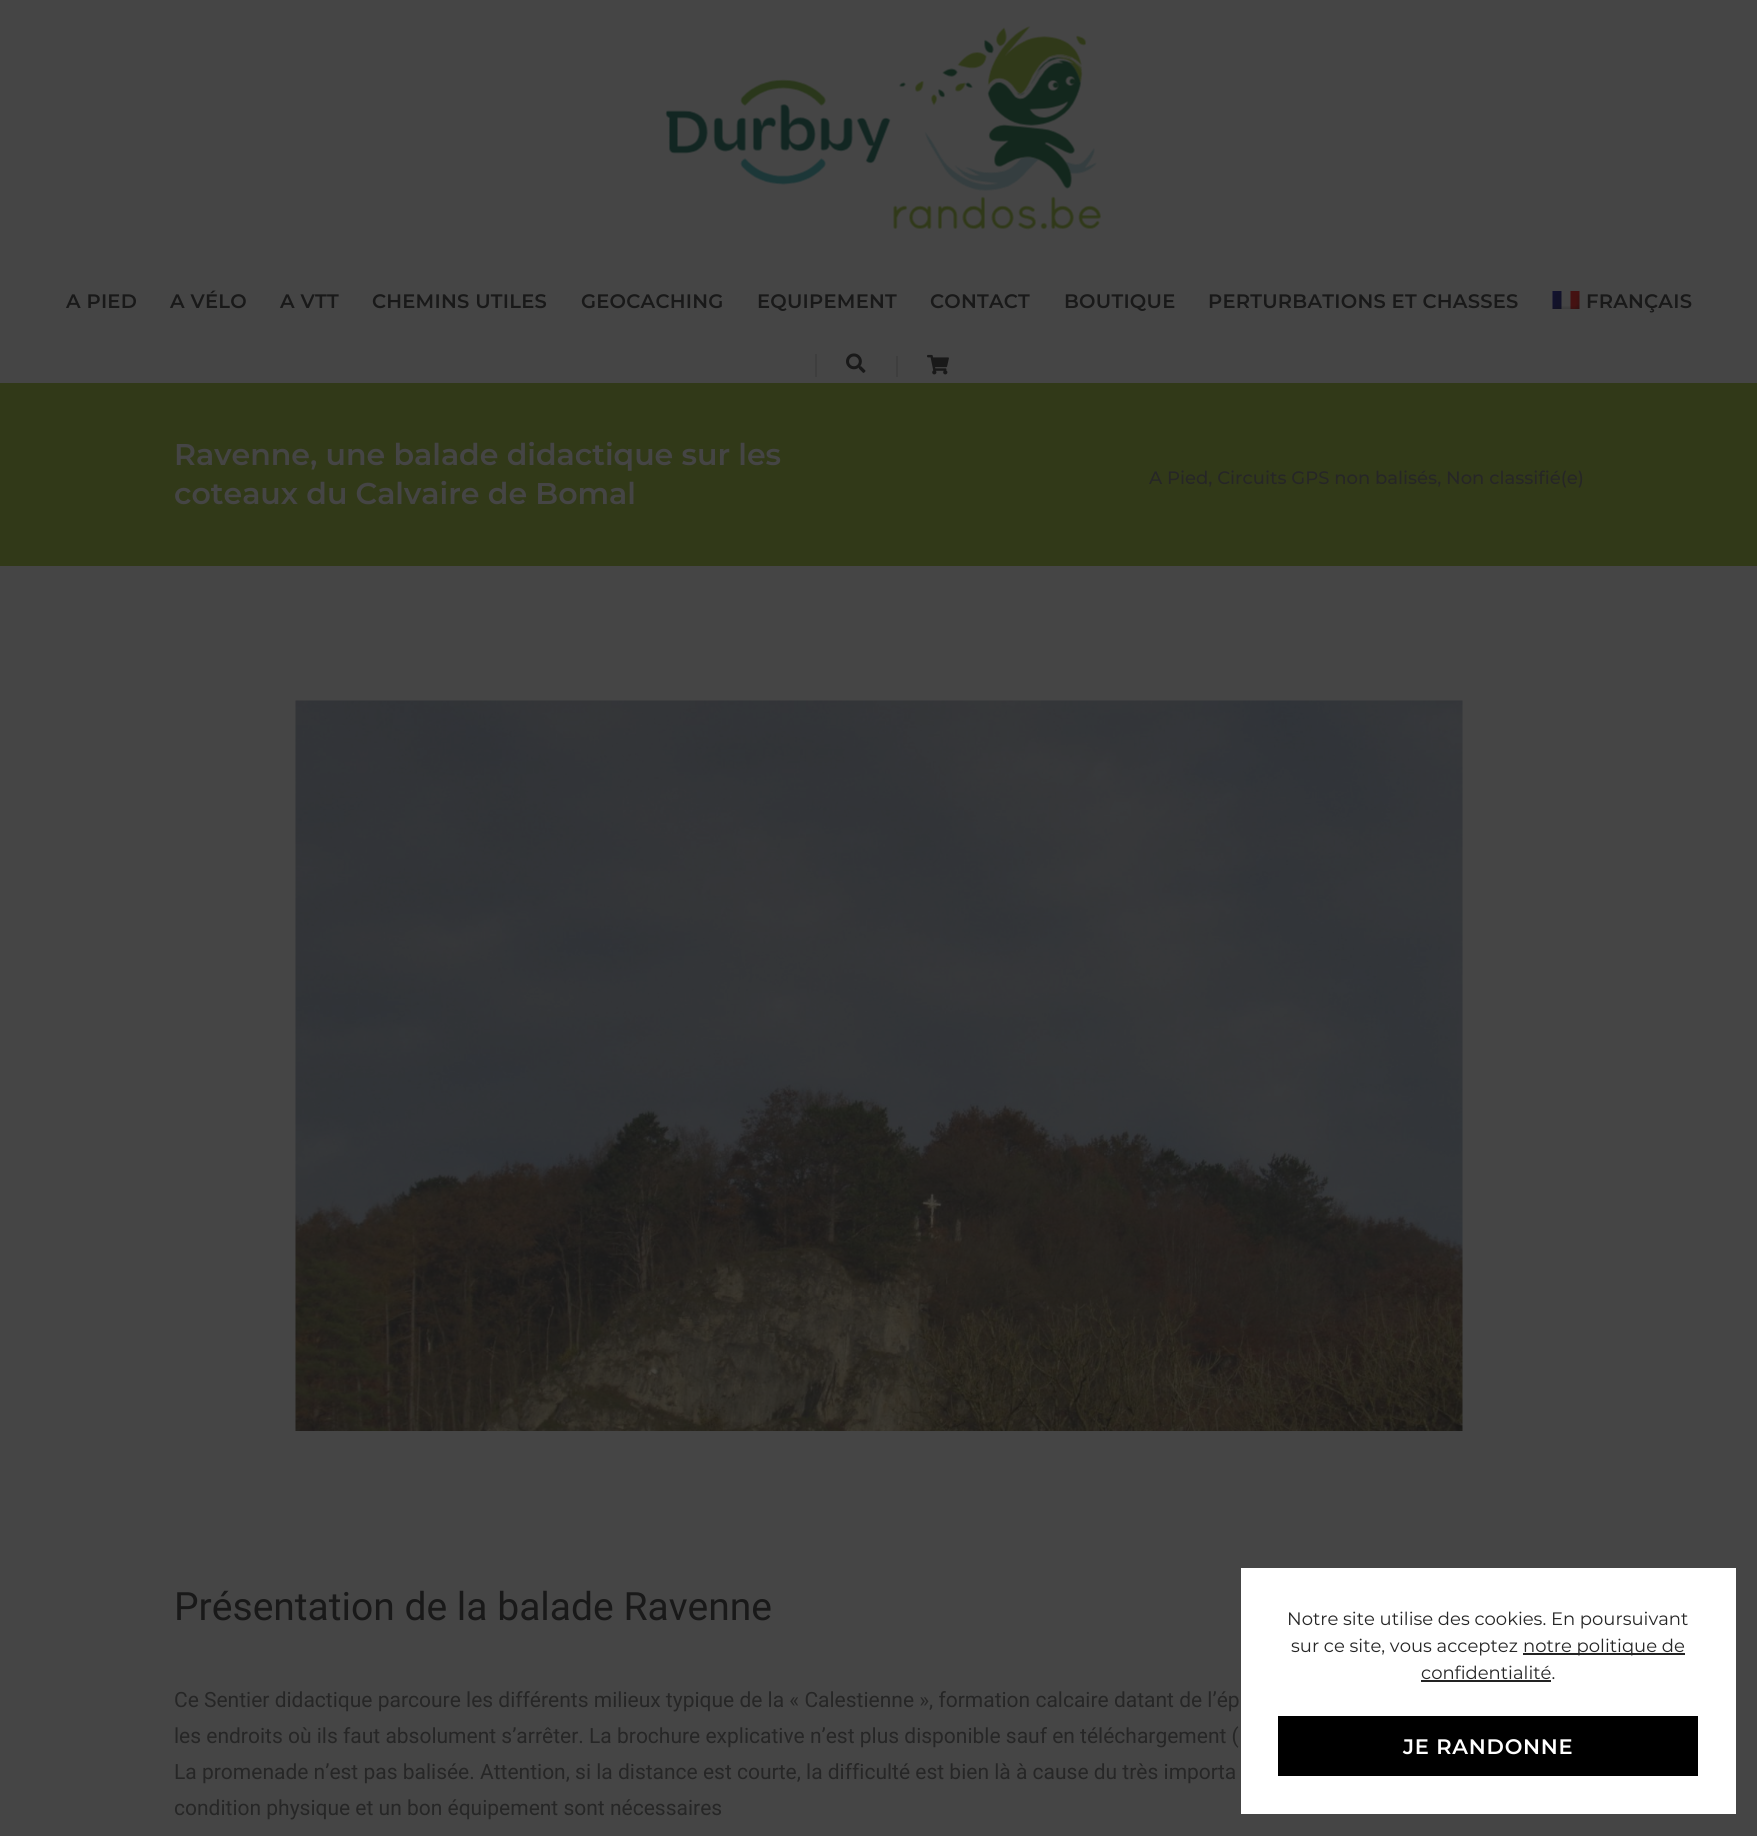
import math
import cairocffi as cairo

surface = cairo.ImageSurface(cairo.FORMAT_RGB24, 1757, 1836)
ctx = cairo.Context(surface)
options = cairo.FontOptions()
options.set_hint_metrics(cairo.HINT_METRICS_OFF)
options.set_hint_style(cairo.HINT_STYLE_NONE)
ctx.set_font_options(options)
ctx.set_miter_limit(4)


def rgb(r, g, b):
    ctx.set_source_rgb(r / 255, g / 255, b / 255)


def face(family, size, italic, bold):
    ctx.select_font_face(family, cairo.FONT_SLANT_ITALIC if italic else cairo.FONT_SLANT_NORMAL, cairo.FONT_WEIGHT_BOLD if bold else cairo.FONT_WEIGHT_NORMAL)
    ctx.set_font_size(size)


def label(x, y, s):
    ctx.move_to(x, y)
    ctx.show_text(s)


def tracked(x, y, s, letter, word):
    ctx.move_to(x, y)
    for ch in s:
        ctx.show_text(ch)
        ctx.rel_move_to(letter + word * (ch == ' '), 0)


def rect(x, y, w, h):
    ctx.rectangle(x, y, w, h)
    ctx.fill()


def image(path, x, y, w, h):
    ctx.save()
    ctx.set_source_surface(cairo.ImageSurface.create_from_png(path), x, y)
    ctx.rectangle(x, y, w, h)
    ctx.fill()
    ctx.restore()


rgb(69, 69, 69)
ctx.paint()
image('image0.png', 665, 26, 436, 204)
face('Montserrat SemiBold', 19.5, 0, 0)
rgb(25, 25, 25)
tracked(66, 308, 'A PIED', 0.25, 0)
tracked(170, 308, 'A VÉLO', 0.25, 0)
tracked(280, 308, 'A VTT', 0.25, 0)
tracked(372, 308, 'CHEMINS UTILES', 0.25, 0)
tracked(581, 308, 'GEOCACHING', 0.25, 0)
tracked(757, 308, 'EQUIPEMENT', 0.25, 0)
tracked(930, 308, 'CONTACT', 0.25, 0)
tracked(1064, 308, 'BOUTIQUE', 0.25, 0)
tracked(1208, 308, 'PERTURBATIONS ET CHASSES', 0.25, 0)
image('image1.png', 1552, 291, 28, 18)
tracked(1586, 308, 'FRANÇAIS', 0.25, 0)
rgb(62, 62, 62)
rect(815, 354, 2, 23)
image('image2.png', 846, 353, 20, 20)
rect(896, 356, 2, 21)
image('image3.png', 927, 354, 22, 21)
rgb(49, 57, 24)
rect(0, 383, 1757, 183)
face('Montserrat SemiBold', 30, 0, 0)
rgb(69, 69, 69)
label(174, 465, 'Ravenne, une balade didactique sur les')
label(174, 504, 'coteaux du Calvaire de Bomal')
face('Montserrat Medium', 18, 0, 0)
rgb(38, 38, 38)
label(1149, 484, 'A Pied, Circuits GPS non balisés, Non classifié(e)')
image('image4.png', 295, 700, 1168, 731)
face('Roboto', 39, 0, 0)
rgb(25, 25, 25)
label(174, 1620, 'Présentation de la balade Ravenne')
face('Roboto', 21, 0, 0)
rgb(38, 38, 38)
label(174, 1707, 'Ce Sentier didactique parcoure les différents milieux typique de la « Calestienne », formation calcaire datant de l’ép')
label(174, 1743, 'les endroits où ils faut absolument s’arrêter. La brochure explicative n’est plus disponible sauf en téléchargement (')
label(174, 1779, 'La promenade n’est pas balisée. Attention, si la distance est courte, la difficulté est bien là à cause du très importa')
label(174, 1815, 'condition physique et un bon équipement sont nécessaires')
rgb(255, 255, 255)
rect(1241, 1568, 495, 246)
face('Montserrat', 18, 0, 0)
rgb(38, 38, 38)
label(1287, 1625, 'Notre site utilise des cookies. En poursuivant')
label(1291, 1652, 'sur ce site, vous acceptez')
rgb(35, 35, 35)
rect(1523, 1653, 162, 2)
rgb(38, 38, 38)
label(1523, 1652, 'notre politique de')
label(1421, 1679, 'confidentialité.')
rgb(35, 35, 35)
rect(1421, 1680, 130, 2)
rgb(0, 0, 0)
rect(1278, 1716, 420, 60)
face('Montserrat SemiBold', 21, 0, 0)
rgb(255, 255, 255)
tracked(1403, 1754, 'JE RANDONNE', 0.75, 0)
surface.write_to_png('render.png')
